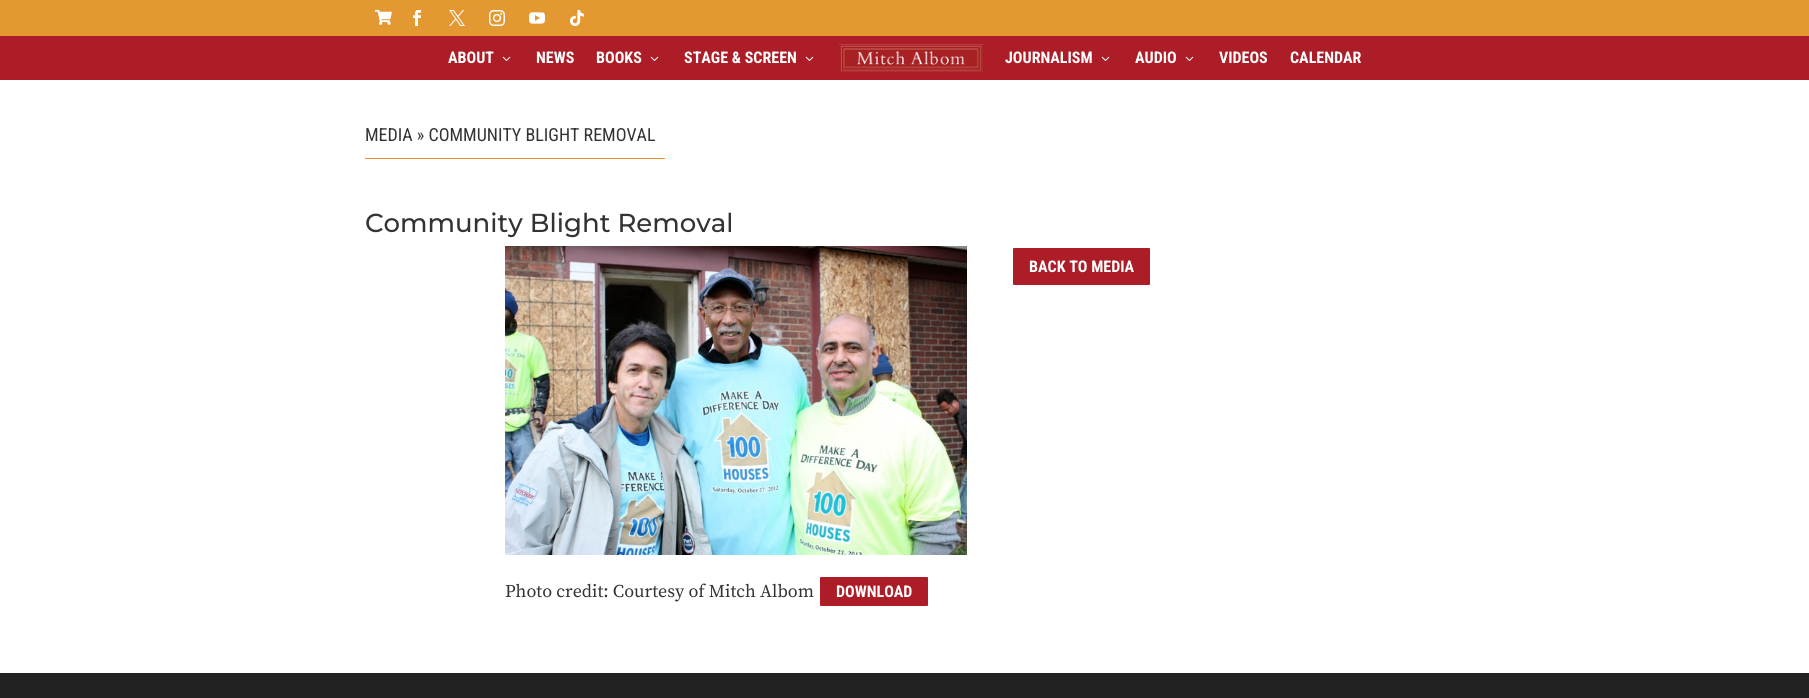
import math
import cairocffi as cairo

surface = cairo.ImageSurface(cairo.FORMAT_RGB24, 1809, 698)
ctx = cairo.Context(surface)
options = cairo.FontOptions()
options.set_hint_metrics(cairo.HINT_METRICS_OFF)
options.set_hint_style(cairo.HINT_STYLE_NONE)
ctx.set_font_options(options)
ctx.set_miter_limit(4)


def rgb(r, g, b):
    ctx.set_source_rgb(r / 255, g / 255, b / 255)


def face(family, size, italic, bold):
    ctx.select_font_face(family, cairo.FONT_SLANT_ITALIC if italic else cairo.FONT_SLANT_NORMAL, cairo.FONT_WEIGHT_BOLD if bold else cairo.FONT_WEIGHT_NORMAL)
    ctx.set_font_size(size)


def label(x, y, s):
    ctx.move_to(x, y)
    ctx.show_text(s)


def rect(x, y, w, h):
    ctx.rectangle(x, y, w, h)
    ctx.fill()


def rrect(x, y, w, h, r):
    ctx.new_sub_path()
    for i, (u, v) in enumerate([(x + w - r, y + h - r), (x + r, y + h - r), (x + r, y + r), (x + w - r, y + r)]):
        ctx.arc(u, v, r, i * math.pi / 2, (i + 1) * math.pi / 2)
    ctx.close_path()


def image(path, x, y, w, h):
    ctx.save()
    ctx.set_source_surface(cairo.ImageSurface.create_from_png(path), x, y)
    ctx.rectangle(x, y, w, h)
    ctx.fill()
    ctx.restore()


rgb(255, 255, 255)
ctx.paint()
rgb(227, 152, 50)
rect(0, 0, 1809, 36)
image('image0.png', 375, 9, 17, 16)
image('image1.png', 413, 10, 8, 16)
image('image2.png', 449, 10, 16, 16)
image('image3.png', 489, 10, 16, 16)
image('image4.png', 529, 12, 16, 12)
image('image5.png', 570, 10, 14, 16)
rgb(173, 29, 39)
rect(0, 36, 1809, 44)
face('Roboto Condensed', 16, 0, 1)
rgb(255, 255, 255)
label(448, 63, 'ABOUT')
image('image6.png', 502, 56, 9, 5)
label(536, 63, 'NEWS')
label(596, 63, 'BOOKS')
image('image6.png', 650, 56, 9, 5)
label(684, 63, 'STAGE & SCREEN')
image('image6.png', 805, 56, 9, 5)
image('image7.png', 839, 44, 144, 28)
label(1005, 63, 'JOURNALISM')
image('image6.png', 1101, 56, 9, 5)
label(1135, 63, 'AUDIO')
image('image6.png', 1185, 56, 9, 5)
label(1219, 63, 'VIDEOS')
label(1290, 63, 'CALENDAR')
face('Roboto Condensed', 18, 0, 0)
rgb(51, 51, 51)
label(365, 141, 'MEDIA » COMMUNITY BLIGHT REMOVAL')
rgb(227, 152, 50)
rect(365, 158, 300, 1)
face('Montserrat Thin', 26, 0, 0)
rgb(51, 51, 51)
label(365, 232, 'Community Blight Removal')
rgb(173, 29, 39)
rrect(1012, 247, 139, 39, 2)
ctx.fill_preserve()
rgb(255, 255, 255)
ctx.stroke()
face('Roboto Condensed', 16, 0, 1)
label(1029, 272, 'BACK TO MEDIA')
image('image8.png', 505, 246, 462, 309)
face('Source Serif Pro', 18, 0, 0)
rgb(51, 51, 51)
label(505, 597, 'Photo credit: Courtesy of Mitch Albom')
rgb(173, 29, 39)
rrect(819, 576, 110, 31, 2)
ctx.fill_preserve()
rgb(255, 255, 255)
ctx.stroke()
face('Roboto Condensed', 16, 0, 1)
label(836, 597, 'DOWNLOAD')
rgb(34, 34, 34)
rect(0, 673, 1809, 25)
surface.write_to_png('render.png')
